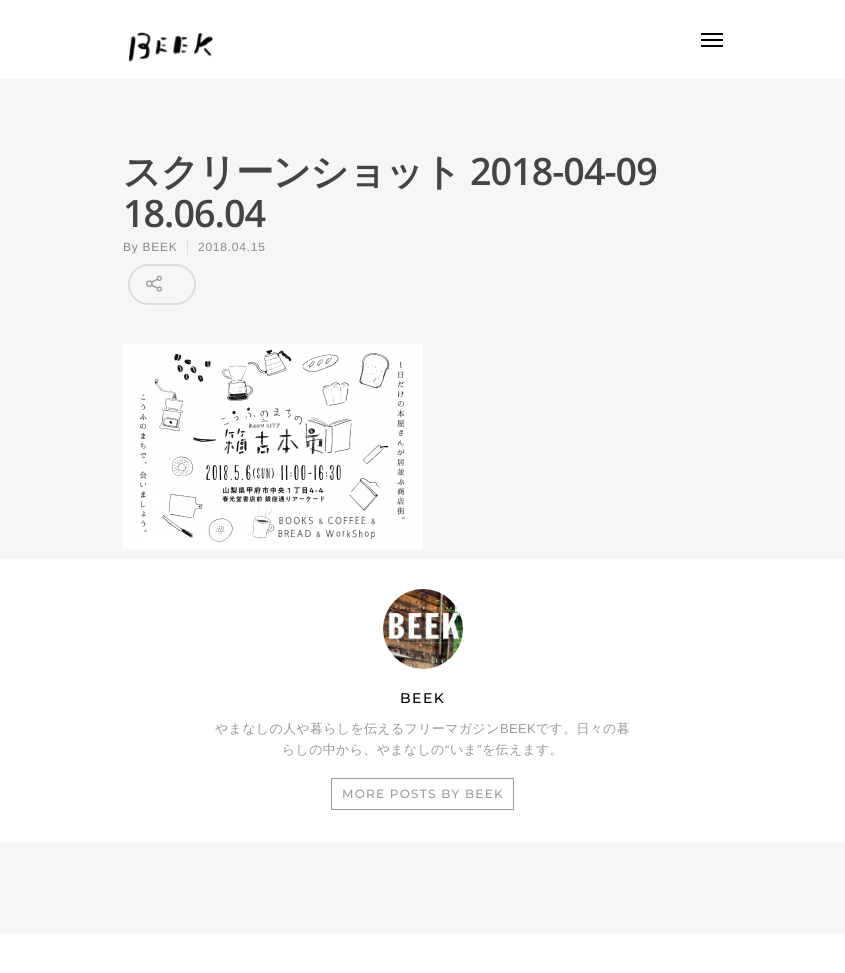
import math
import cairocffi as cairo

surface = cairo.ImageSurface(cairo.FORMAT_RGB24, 845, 973)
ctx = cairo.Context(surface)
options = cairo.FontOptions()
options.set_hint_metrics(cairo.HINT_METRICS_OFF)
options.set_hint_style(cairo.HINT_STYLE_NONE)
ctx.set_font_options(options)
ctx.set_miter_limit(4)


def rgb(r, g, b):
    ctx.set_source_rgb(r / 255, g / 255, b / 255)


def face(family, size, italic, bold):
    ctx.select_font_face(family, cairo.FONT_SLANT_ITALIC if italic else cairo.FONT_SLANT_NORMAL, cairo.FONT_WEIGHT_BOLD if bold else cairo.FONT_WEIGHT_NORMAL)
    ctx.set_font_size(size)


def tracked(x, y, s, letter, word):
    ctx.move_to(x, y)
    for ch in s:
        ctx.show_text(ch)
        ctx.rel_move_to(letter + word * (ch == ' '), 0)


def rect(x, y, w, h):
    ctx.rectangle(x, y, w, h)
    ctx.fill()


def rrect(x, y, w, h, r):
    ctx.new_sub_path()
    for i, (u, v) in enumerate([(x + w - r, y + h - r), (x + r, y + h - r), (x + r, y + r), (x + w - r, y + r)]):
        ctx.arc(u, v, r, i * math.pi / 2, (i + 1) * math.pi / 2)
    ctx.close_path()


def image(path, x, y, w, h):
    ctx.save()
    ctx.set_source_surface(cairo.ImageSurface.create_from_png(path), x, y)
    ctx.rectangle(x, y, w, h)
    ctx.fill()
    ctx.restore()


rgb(255, 255, 255)
ctx.paint()
image('image0.png', 129, 32, 85, 30)
rgb(0, 0, 0)
rect(701, 33, 22, 2)
rect(701, 45, 22, 2)
rect(701, 39, 22, 2)
rgb(246, 246, 246)
rect(0, 79, 845, 854)
face('WenQuanYi Zen Hei', 37.75, 0, 1)
rgb(68, 68, 68)
tracked(123, 185, 'スクリーンショット', -1, 0)
face('Open Sans SemiBold', 37.75, 0, 0)
tracked(470, 185, '2018-04-09', -1, 0)
tracked(123, 227, '18.06.04', -1, 0)
face('Liberation Sans', 12, 0, 0)
rgb(136, 136, 136)
tracked(123, 251, 'By BEEK', 0.75, 0)
rgb(221, 221, 221)
rect(187, 239, 1, 16)
rgb(136, 136, 136)
tracked(198, 251, '2018.04.15', 0.75, 0)
rrect(129, 265, 66, 39, 19.5)
rgb(221, 221, 221)
ctx.stroke()
image('image1.png', 146, 275, 16, 17)
image('image2.png', 123, 344, 300, 205)
rgb(255, 255, 255)
rect(0, 559, 845, 284)
image('image3.png', 383, 589, 80, 80)
face('Montserrat Thin', 14, 0, 0)
rgb(0, 0, 0)
tracked(400, 703, 'BEEK', 1.5, 0)
face('WenQuanYi Zen Hei Medium', 13, 0, 0)
rgb(153, 153, 153)
tracked(215, 733, 'やまなしの人や暮らしを伝えるフリーマガジン', 0.3, 0)
face('Liberation Sans', 13, 0, 0)
tracked(500, 733, 'BEEK', 0.3, 0)
face('WenQuanYi Zen Hei Medium', 13, 0, 0)
tracked(536, 733, 'です。日々の暮', 0.3, 0)
tracked(282, 754, 'らしの中から、やまなしの', 0.3, 0)
face('Liberation Sans', 13, 0, 0)
tracked(445, 754, '“', 0.3, 0)
face('WenQuanYi Zen Hei Medium', 13, 0, 0)
tracked(450, 754, 'いま', 0.3, 0)
face('Liberation Sans', 13, 0, 0)
tracked(477, 754, '”', 0.3, 0)
face('WenQuanYi Zen Hei Medium', 13, 0, 0)
tracked(482, 754, 'を伝えます。', 0.3, 0)
ctx.rectangle(331.5, 778.5, 182, 31)
ctx.set_line_width(1)
ctx.stroke()
face('Montserrat Thin', 12, 0, 0)
tracked(342, 798, 'MORE POSTS BY BEEK', 1.25, 0)
surface.write_to_png('render.png')
